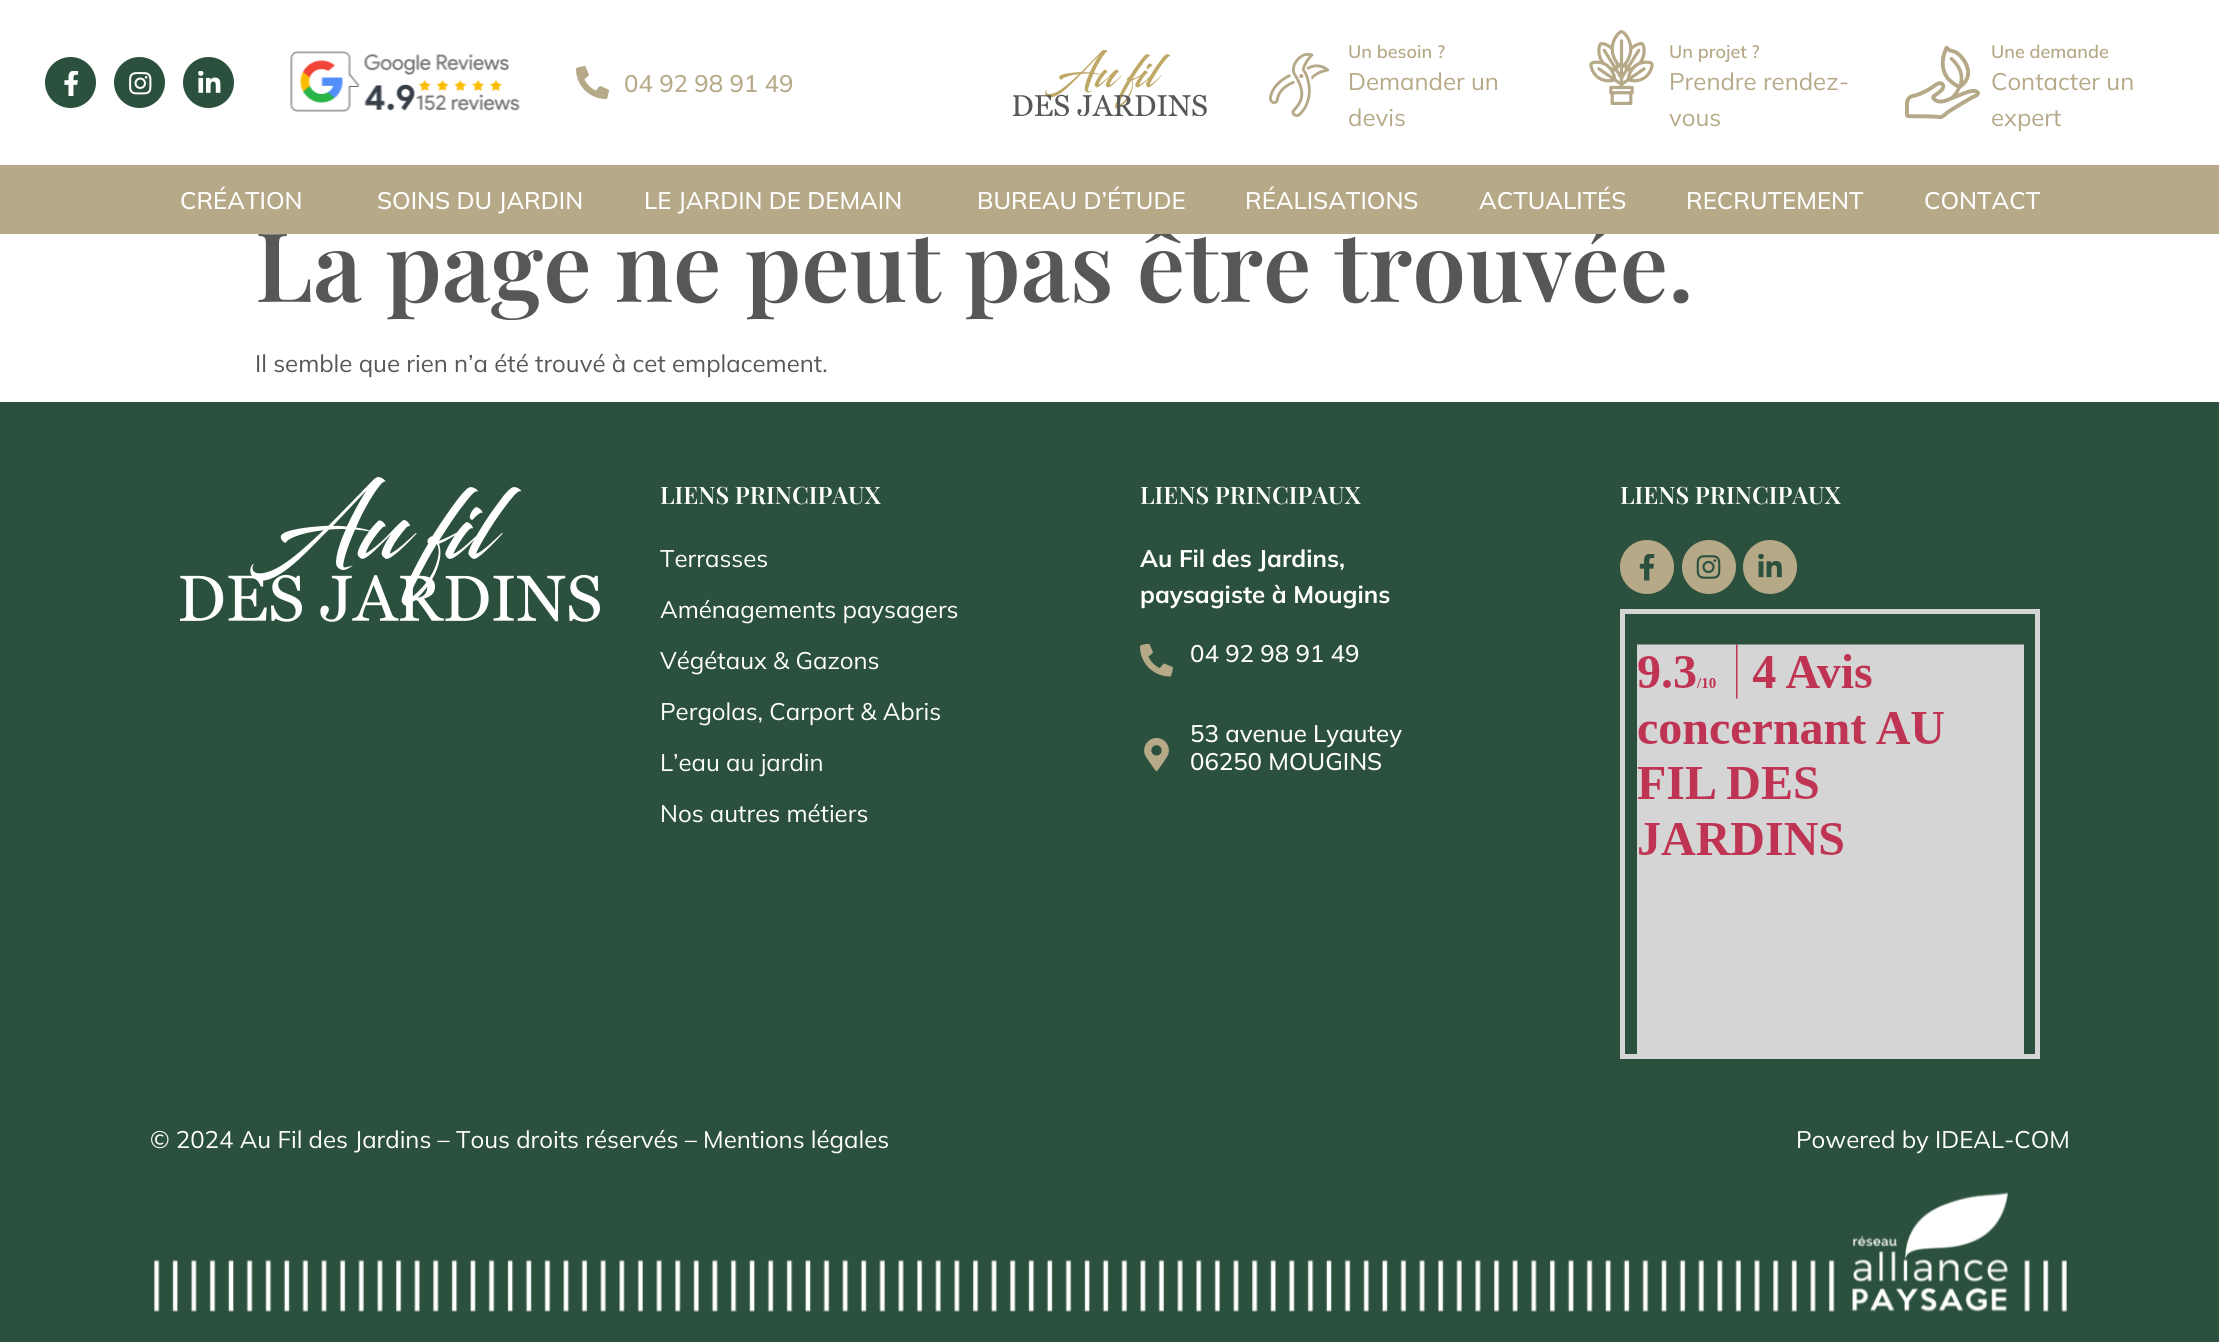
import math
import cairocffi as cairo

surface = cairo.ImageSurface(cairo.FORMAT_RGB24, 2219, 1342)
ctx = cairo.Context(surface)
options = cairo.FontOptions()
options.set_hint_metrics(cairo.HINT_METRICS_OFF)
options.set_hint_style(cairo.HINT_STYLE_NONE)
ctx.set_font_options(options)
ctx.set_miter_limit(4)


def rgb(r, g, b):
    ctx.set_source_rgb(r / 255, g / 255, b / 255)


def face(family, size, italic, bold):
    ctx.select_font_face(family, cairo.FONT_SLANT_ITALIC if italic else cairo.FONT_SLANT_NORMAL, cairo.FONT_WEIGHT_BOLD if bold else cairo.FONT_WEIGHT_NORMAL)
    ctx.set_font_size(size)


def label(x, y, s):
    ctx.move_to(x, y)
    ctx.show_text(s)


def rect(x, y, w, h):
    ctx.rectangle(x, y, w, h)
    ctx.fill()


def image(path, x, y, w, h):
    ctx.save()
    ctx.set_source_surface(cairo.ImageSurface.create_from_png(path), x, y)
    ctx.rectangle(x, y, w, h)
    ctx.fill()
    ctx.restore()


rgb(255, 255, 255)
ctx.paint()
rgb(43, 80, 61)
ctx.arc(70.5, 82.5, 25.5, 0, 2 * math.pi)
ctx.fill()
image('image0.png', 64, 71, 15, 25)
ctx.arc(139.5, 82.5, 25.5, 0, 2 * math.pi)
ctx.fill()
image('image1.png', 129, 72, 23, 23)
ctx.arc(208.5, 82.5, 25.5, 0, 2 * math.pi)
ctx.fill()
image('image2.png', 198, 71, 23, 22)
image('image3.png', 290, 51, 230, 61)
image('image4.png', 576, 66, 33, 33)
face('Mulish Medium', 24, 0, 0)
rgb(182, 169, 136)
label(624, 92, '04 92 98 91 49')
image('image5.png', 1013, 50, 194, 66)
image('image6.png', 1269, 52, 61, 65)
face('Mulish SemiBold', 18, 0, 0)
label(1348, 58, 'Un besoin ?')
face('Mulish', 24, 0, 0)
label(1348, 90, 'Demander un')
label(1348, 126, 'devis')
image('image7.png', 1589, 30, 65, 75)
face('Mulish SemiBold', 18, 0, 0)
label(1669, 58, 'Un projet ?')
face('Mulish', 24, 0, 0)
label(1669, 90, 'Prendre rendez-')
label(1669, 126, 'vous')
image('image8.png', 1905, 45, 75, 75)
face('Mulish SemiBold', 18, 0, 0)
label(1991, 58, 'Une demande')
face('Mulish', 24, 0, 0)
label(1991, 90, 'Contacter un')
label(1991, 126, 'expert')
face('Playfair Display SemiBold', 96, 0, 0)
rgb(87, 87, 86)
label(255, 302, 'La page ne peut pas être trouvée.')
rgb(182, 169, 136)
rect(0, 165, 2219, 69)
face('Mulish Medium', 24, 0, 0)
rgb(255, 255, 255)
label(180, 209, 'CRÉATION')
label(377, 209, 'SOINS DU JARDIN')
label(644, 209, 'LE JARDIN DE DEMAIN')
label(977, 209, 'BUREAU D’ÉTUDE')
label(1245, 209, 'RÉALISATIONS')
label(1479, 209, 'ACTUALITÉS')
label(1686, 209, 'RECRUTEMENT')
label(1924, 209, 'CONTACT')
face('Mulish', 24, 0, 0)
rgb(87, 87, 86)
label(255, 372, 'Il semble que rien n’a été trouvé à cet emplacement.')
rgb(43, 80, 61)
rect(0, 402, 2219, 940)
image('image9.png', 180, 477, 420, 145)
face('Playfair Display SemiBold', 24, 0, 0)
rgb(255, 255, 255)
label(660, 504, 'LIENS PRINCIPAUX')
face('Mulish', 24, 0, 0)
label(660, 567, 'Terrasses')
label(660, 618, 'Aménagements paysagers')
label(660, 669, 'Végétaux & Gazons')
label(660, 720, 'Pergolas, Carport & Abris')
label(660, 771, 'L’eau au jardin')
label(660, 822, 'Nos autres métiers')
face('Playfair Display SemiBold', 24, 0, 0)
label(1140, 504, 'LIENS PRINCIPAUX')
face('Mulish', 24, 0, 1)
label(1140, 567, 'Au Fil des Jardins,')
label(1140, 603, 'paysagiste à Mougins')
image('image10.png', 1140, 644, 33, 33)
face('Mulish Medium', 24, 0, 0)
label(1190, 662, '04 92 98 91 49')
image('image11.png', 1144, 738, 25, 33)
label(1190, 742, '53 avenue Lyautey')
label(1190, 770, '06250 MOUGINS')
face('Playfair Display SemiBold', 24, 0, 0)
label(1620, 504, 'LIENS PRINCIPAUX')
rgb(182, 169, 136)
ctx.new_path()
ctx.arc(1647, 567, 27, 0, 2 * math.pi)
ctx.fill()
image('image12.png', 1639, 554, 16, 27)
ctx.arc(1709, 567, 27, 0, 2 * math.pi)
ctx.fill()
image('image13.png', 1696, 555, 25, 24)
ctx.arc(1770, 567, 27, 0, 2 * math.pi)
ctx.fill()
image('image14.png', 1758, 554, 24, 24)
ctx.rectangle(1622.5, 611.5, 415, 445)
rgb(213, 213, 213)
ctx.set_line_width(5)
ctx.stroke()
image('image15.png', 1637, 644, 387, 410)
face('Mulish', 24, 0, 0)
rgb(255, 255, 255)
label(150, 1148, '© 2024 Au Fil des Jardins – Tous droits réservés – Mentions légales')
label(1796, 1148, 'Powered by IDEAL-COM')
image('image16.png', 154, 1192, 1913, 120)
surface.write_to_png('render.png')
